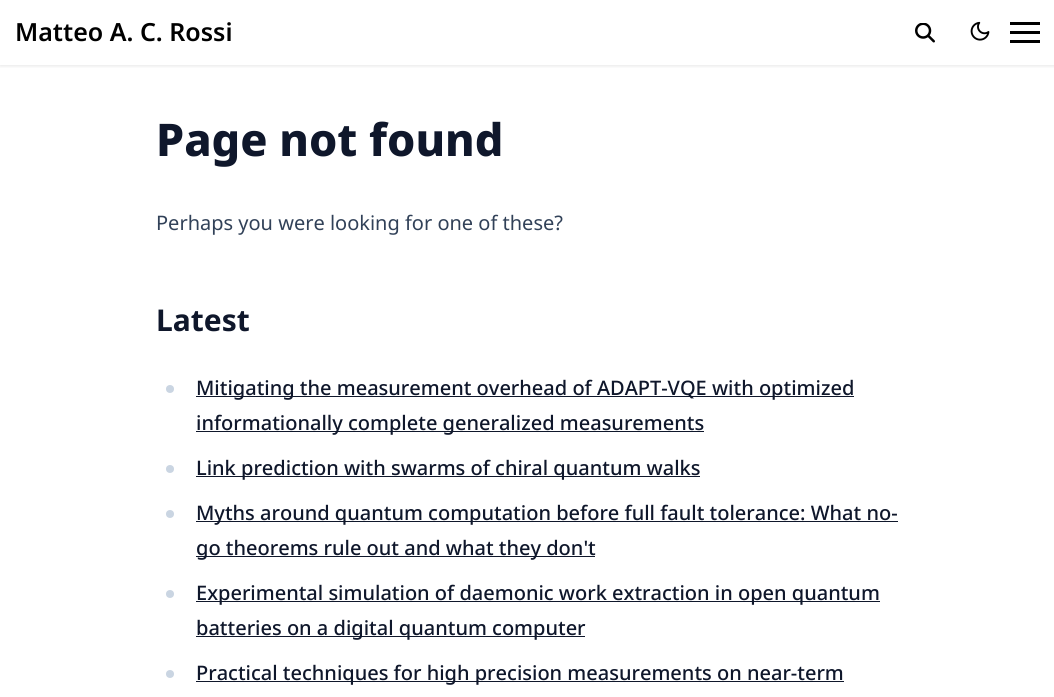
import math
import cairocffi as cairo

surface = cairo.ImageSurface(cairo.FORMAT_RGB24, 1054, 697)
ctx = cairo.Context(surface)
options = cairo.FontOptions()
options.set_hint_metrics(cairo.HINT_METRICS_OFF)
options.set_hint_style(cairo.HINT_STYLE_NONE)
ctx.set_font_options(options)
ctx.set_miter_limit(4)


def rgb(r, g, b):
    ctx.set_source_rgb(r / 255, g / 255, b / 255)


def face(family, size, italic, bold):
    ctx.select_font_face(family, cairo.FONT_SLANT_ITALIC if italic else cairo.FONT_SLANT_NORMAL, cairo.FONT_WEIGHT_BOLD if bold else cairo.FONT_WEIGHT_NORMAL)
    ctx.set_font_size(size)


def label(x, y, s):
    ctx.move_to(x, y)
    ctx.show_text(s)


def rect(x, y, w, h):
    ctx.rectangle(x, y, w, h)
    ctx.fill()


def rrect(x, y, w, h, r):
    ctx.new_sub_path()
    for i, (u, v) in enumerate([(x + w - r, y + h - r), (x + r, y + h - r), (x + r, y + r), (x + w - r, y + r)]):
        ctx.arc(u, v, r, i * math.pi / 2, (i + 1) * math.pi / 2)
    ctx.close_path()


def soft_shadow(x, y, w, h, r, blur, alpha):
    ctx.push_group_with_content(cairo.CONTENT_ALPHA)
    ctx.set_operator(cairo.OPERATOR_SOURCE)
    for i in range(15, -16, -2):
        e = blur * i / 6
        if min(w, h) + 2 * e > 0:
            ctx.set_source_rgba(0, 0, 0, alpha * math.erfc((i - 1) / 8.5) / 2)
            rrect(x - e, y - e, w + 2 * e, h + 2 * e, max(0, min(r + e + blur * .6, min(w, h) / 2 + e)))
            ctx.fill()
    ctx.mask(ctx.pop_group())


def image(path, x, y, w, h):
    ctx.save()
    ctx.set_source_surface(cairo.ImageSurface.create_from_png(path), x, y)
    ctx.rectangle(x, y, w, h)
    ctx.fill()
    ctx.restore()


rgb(255, 255, 255)
ctx.paint()
ctx.save()
ctx.rectangle(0, 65, 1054, 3)
ctx.clip()
rgb(0, 0, 0)
soft_shadow(0, 1, 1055, 65, 0, 2, 0.1)
ctx.restore()
face('Noto Sans SemiBold', 25, 0, 0)
rgb(0, 0, 0)
label(15, 41, 'Matteo A. C. Rossi')
image('image0.png', 915, 23, 20, 20)
image('image1.png', 970, 21, 20, 20)
image('image2.png', 1010, 22, 30, 21)
face('Noto Sans ExtraBold', 45, 0, 0)
rgb(15, 23, 43)
label(156, 156, 'Page not found')
face('Noto Sans', 20, 0, 0)
rgb(49, 65, 88)
label(156, 230, 'Perhaps you were looking for one of these?')
face('Noto Sans', 30, 0, 1)
rgb(15, 23, 43)
label(156, 331, 'Latest')
rgb(202, 213, 226)
ctx.new_path()
ctx.arc(170, 389, 4, 0, 2 * math.pi)
ctx.fill()
rgb(15, 23, 43)
rect(196, 396, 658, 1)
face('Noto Sans Medium', 20, 0, 0)
label(196, 395, 'Mitigating the measurement overhead of ADAPT-VQE with optimized')
rect(196, 431, 508, 1)
label(196, 430, 'informationally complete generalized measurements')
rgb(202, 213, 226)
ctx.new_path()
ctx.arc(170, 469, 4, 0, 2 * math.pi)
ctx.fill()
rgb(15, 23, 43)
rect(196, 476, 504, 1)
label(196, 475, 'Link prediction with swarms of chiral quantum walks')
rgb(202, 213, 226)
ctx.new_path()
ctx.arc(170, 514, 4, 0, 2 * math.pi)
ctx.fill()
rgb(15, 23, 43)
rect(196, 521, 702, 1)
label(196, 520, 'Myths around quantum computation before full fault tolerance: What no-')
rect(196, 556, 399, 1)
label(196, 555, 'go theorems rule out and what they don\'t')
rgb(202, 213, 226)
ctx.new_path()
ctx.arc(170, 594, 4, 0, 2 * math.pi)
ctx.fill()
rgb(15, 23, 43)
rect(196, 601, 684, 1)
label(196, 600, 'Experimental simulation of daemonic work extraction in open quantum')
rect(196, 636, 389, 1)
label(196, 635, 'batteries on a digital quantum computer')
rgb(202, 213, 226)
ctx.new_path()
ctx.arc(170, 674, 4, 0, 2 * math.pi)
ctx.fill()
rgb(15, 23, 43)
rect(196, 681, 648, 1)
label(196, 680, 'Practical techniques for high precision measurements on near-term')
surface.write_to_png('render.png')
